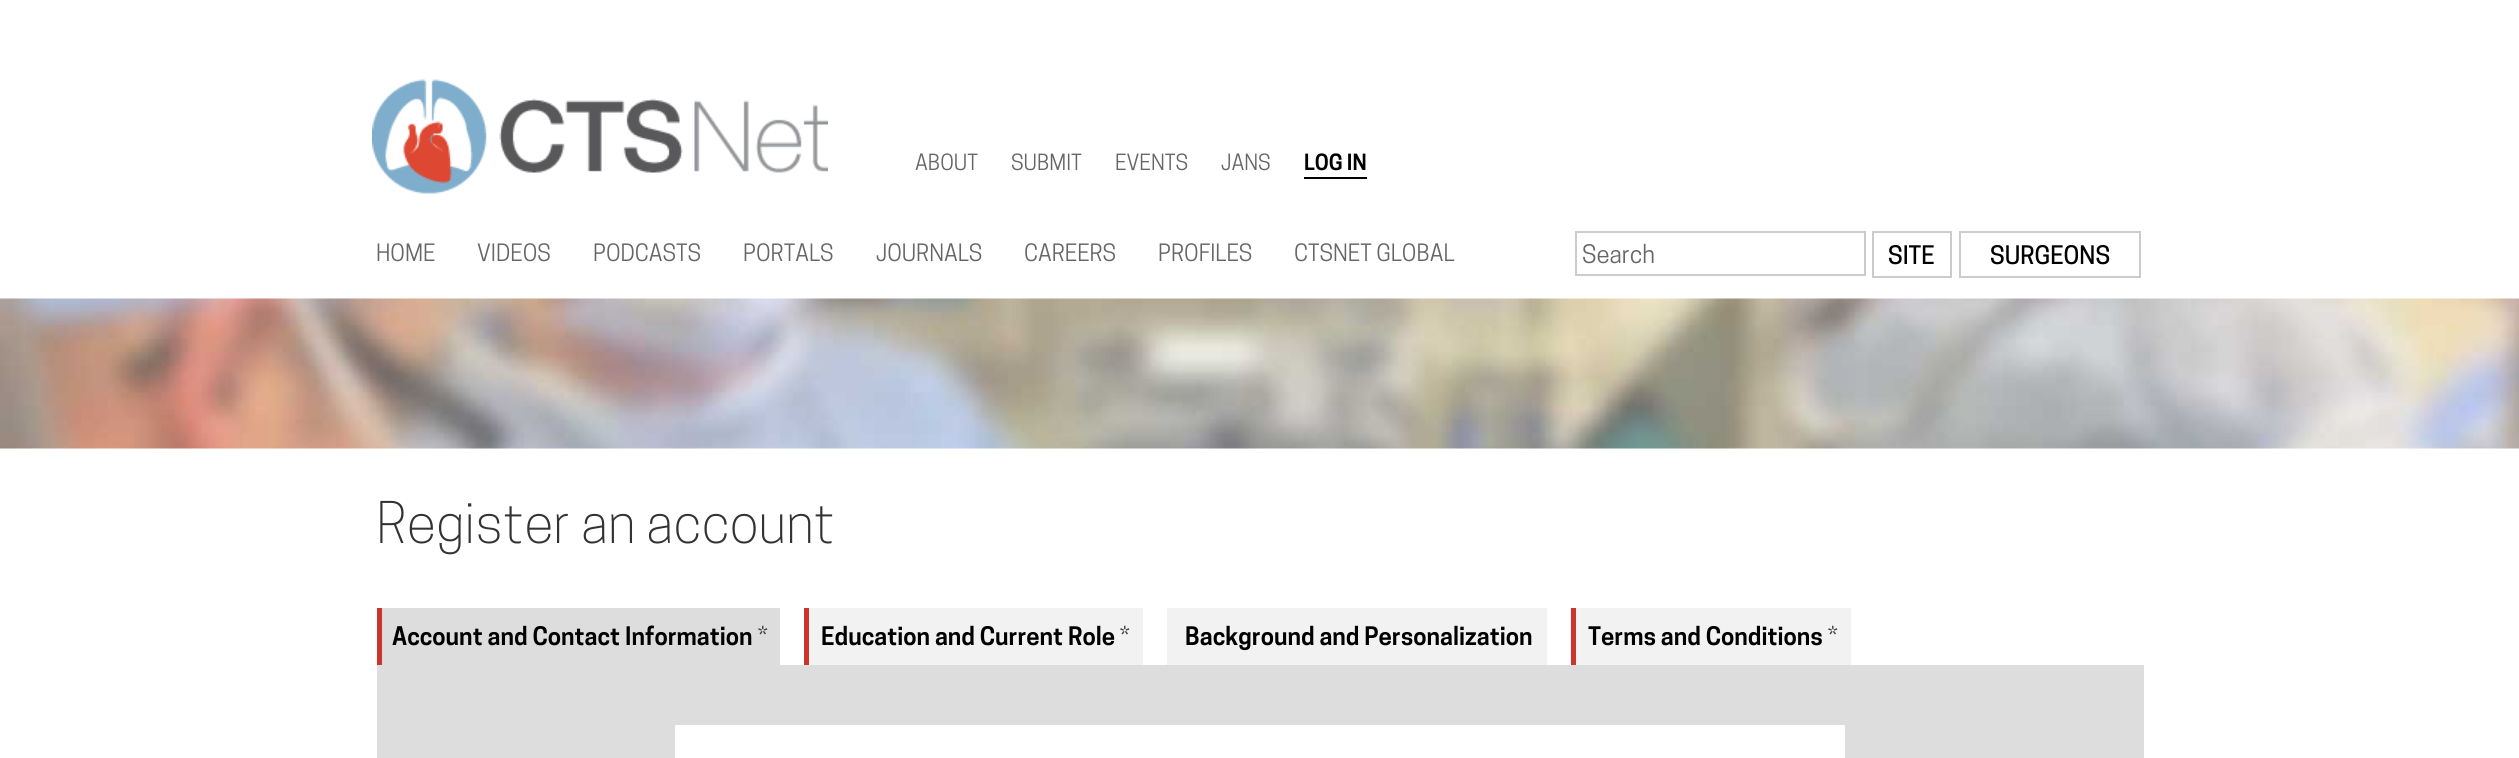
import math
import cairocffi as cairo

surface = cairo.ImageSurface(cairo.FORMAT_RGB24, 2519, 758)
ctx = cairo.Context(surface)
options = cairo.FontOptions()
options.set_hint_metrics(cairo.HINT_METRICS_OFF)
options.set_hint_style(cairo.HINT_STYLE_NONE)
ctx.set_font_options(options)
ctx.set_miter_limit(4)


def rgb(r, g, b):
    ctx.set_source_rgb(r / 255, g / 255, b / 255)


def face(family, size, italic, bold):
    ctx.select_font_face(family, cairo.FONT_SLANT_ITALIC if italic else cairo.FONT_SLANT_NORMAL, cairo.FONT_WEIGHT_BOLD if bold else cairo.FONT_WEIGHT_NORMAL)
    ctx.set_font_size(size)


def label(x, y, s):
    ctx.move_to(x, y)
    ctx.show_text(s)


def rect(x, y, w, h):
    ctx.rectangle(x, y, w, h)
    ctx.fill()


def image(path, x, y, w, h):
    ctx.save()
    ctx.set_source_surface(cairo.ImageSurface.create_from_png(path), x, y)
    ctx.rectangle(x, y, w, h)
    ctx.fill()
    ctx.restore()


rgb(255, 255, 255)
ctx.paint()
image('image0.png', 372, 79, 456, 115)
face('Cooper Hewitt', 21, 0, 0)
rgb(102, 102, 102)
label(915, 170, 'ABOUT')
label(1011, 170, 'SUBMIT')
label(1115, 170, 'EVENTS')
label(1221, 170, 'JANS')
rgb(0, 0, 0)
rect(1304, 177, 63, 2)
face('Cooper Hewitt SemiBold', 21, 0, 0)
label(1304, 170, 'LOG IN')
face('Cooper Hewitt', 22.5, 0, 0)
rgb(102, 102, 102)
label(376, 261, 'HOME')
label(477, 261, 'VIDEOS')
label(593, 261, 'PODCASTS')
label(743, 261, 'PORTALS')
label(876, 261, 'JOURNALS')
label(1024, 261, 'CAREERS')
label(1158, 261, 'PROFILES')
label(1294, 261, 'CTSNET GLOBAL')
ctx.rectangle(1576, 232, 289, 43)
rgb(204, 204, 204)
ctx.stroke()
face('Cooper Hewitt', 24, 0, 0)
rgb(102, 102, 102)
label(1582, 263, 'Search')
ctx.rectangle(1873, 232, 78, 45)
rgb(204, 204, 204)
ctx.stroke()
face('Cooper Hewitt Medium', 24, 0, 0)
rgb(0, 0, 0)
label(1888, 264, 'SITE')
ctx.rectangle(1960, 232, 180, 45)
rgb(204, 204, 204)
ctx.stroke()
rgb(0, 0, 0)
label(1990, 264, 'SURGEONS')
image('image1.png', 0, 298, 2519, 151)
face('Cooper Hewitt Light', 54, 0, 0)
rgb(51, 51, 51)
label(376, 543, 'Register an account')
rgb(221, 221, 221)
rect(382, 608, 398, 57)
rgb(203, 53, 43)
rect(377, 608, 5, 57)
face('Cooper Hewitt SemiBold', 24, 0, 0)
rgb(0, 0, 0)
label(392, 645, 'Account and Contact Information')
face('Cooper Hewitt Medium', 24, 0, 0)
rgb(68, 68, 68)
label(758, 645, '*')
rgb(242, 242, 242)
rect(809, 608, 334, 57)
rgb(203, 53, 43)
rect(804, 608, 5, 57)
face('Cooper Hewitt SemiBold', 24, 0, 0)
rgb(0, 0, 0)
label(821, 645, 'Education and Current Role')
face('Cooper Hewitt Medium', 24, 0, 0)
rgb(68, 68, 68)
label(1120, 645, '*')
rgb(242, 242, 242)
rect(1167, 608, 380, 57)
face('Cooper Hewitt SemiBold', 24, 0, 0)
rgb(0, 0, 0)
label(1185, 645, 'Background and Personalization')
rgb(242, 242, 242)
rect(1576, 608, 275, 57)
rgb(203, 53, 43)
rect(1571, 608, 5, 57)
rgb(0, 0, 0)
label(1588, 645, 'Terms and Conditions')
face('Cooper Hewitt Medium', 24, 0, 0)
rgb(68, 68, 68)
label(1828, 645, '*')
rgb(221, 221, 221)
rect(377, 665, 1767, 93)
rgb(255, 255, 255)
rect(675, 725, 1170, 33)
surface.write_to_png('render.png')
